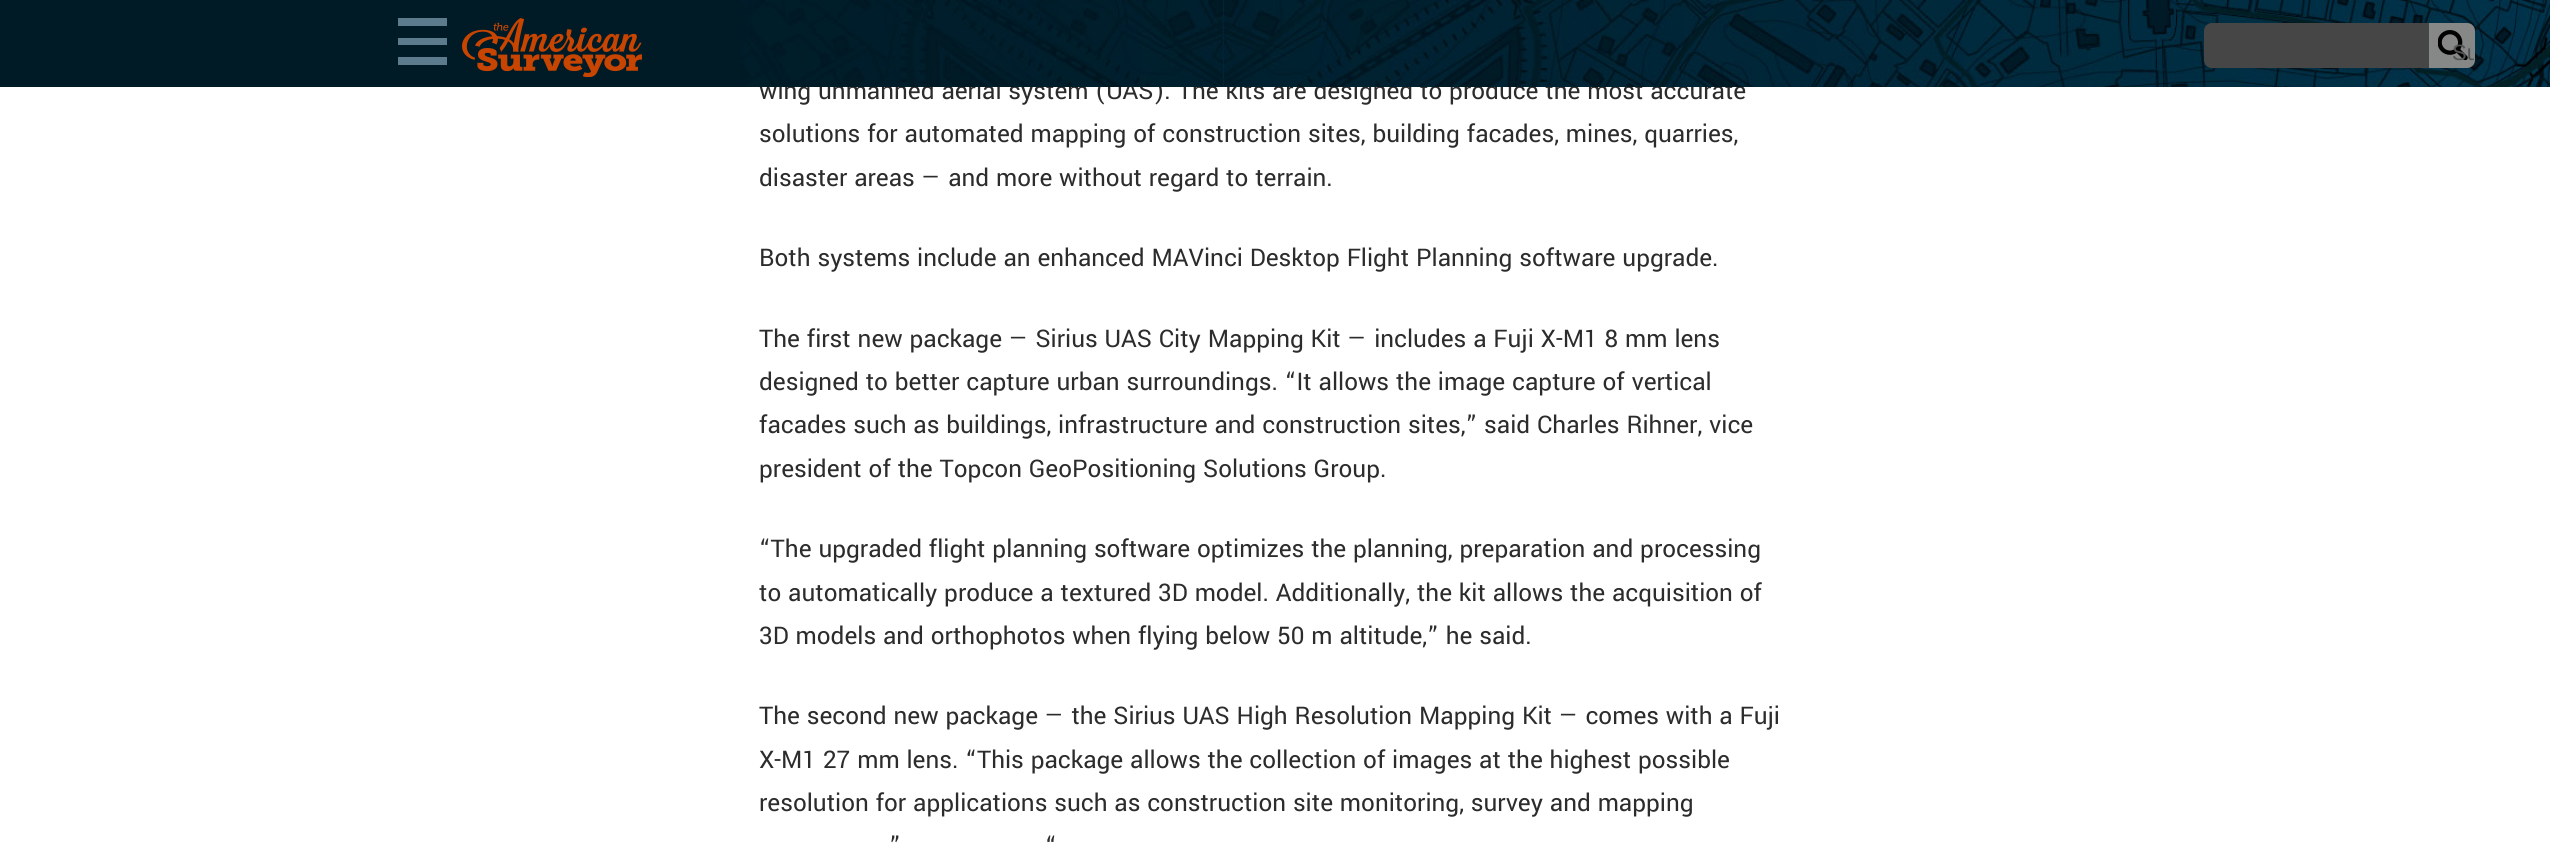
import math
import cairocffi as cairo

surface = cairo.ImageSurface(cairo.FORMAT_RGB24, 2550, 849)
ctx = cairo.Context(surface)
options = cairo.FontOptions()
options.set_hint_metrics(cairo.HINT_METRICS_OFF)
options.set_hint_style(cairo.HINT_STYLE_NONE)
ctx.set_font_options(options)
ctx.set_miter_limit(4)


def rgb(r, g, b):
    ctx.set_source_rgb(r / 255, g / 255, b / 255)


def face(family, size, italic, bold):
    ctx.select_font_face(family, cairo.FONT_SLANT_ITALIC if italic else cairo.FONT_SLANT_NORMAL, cairo.FONT_WEIGHT_BOLD if bold else cairo.FONT_WEIGHT_NORMAL)
    ctx.set_font_size(size)


def label(x, y, s):
    ctx.move_to(x, y)
    ctx.show_text(s)


def rect(x, y, w, h):
    ctx.rectangle(x, y, w, h)
    ctx.fill()


def image(path, x, y, w, h):
    ctx.save()
    ctx.set_source_surface(cairo.ImageSurface.create_from_png(path), x, y)
    ctx.rectangle(x, y, w, h)
    ctx.fill()
    ctx.restore()


rgb(255, 255, 255)
ctx.paint()
face('Yantramanav', 27, 0, 0)
rgb(44, 44, 44)
label(759, 99, 'wing unmanned aerial system (UAS). The kits are designed to produce the most accurate')
rgb(0, 26, 38)
rect(0, 0, 2550, 87)
image('image0.png', 740, 0, 1810, 87)
rgb(92, 124, 141)
rect(398, 18, 49, 8)
rect(398, 38, 49, 7)
rect(398, 57, 49, 8)
image('image1.png', 462, 18, 180, 59)
rgb(70, 70, 70)
ctx.new_path()
ctx.move_to(2212, 23)
ctx.line_to(2429, 23)
ctx.line_to(2429, 68)
ctx.line_to(2212, 68)
ctx.curve_to(2207.5, 68, 2204, 64.5, 2204, 60)
ctx.line_to(2204, 31)
ctx.curve_to(2204, 26.5, 2207.5, 23, 2212, 23)
ctx.close_path()
ctx.fill()
rgb(134, 136, 136)
ctx.new_path()
ctx.move_to(2429, 23)
ctx.line_to(2467, 23)
ctx.curve_to(2471.5, 23, 2475, 26.5, 2475, 31)
ctx.line_to(2475, 60)
ctx.curve_to(2475, 64.5, 2471.5, 68, 2467, 68)
ctx.line_to(2429, 68)
ctx.close_path()
ctx.fill()
image('image2.png', 2438, 30, 30, 30)
ctx.save()
ctx.new_path()
ctx.move_to(2430, 24)
ctx.line_to(2468, 24)
ctx.curve_to(2471.5, 24, 2474, 26.5, 2474, 30)
ctx.line_to(2474, 60)
ctx.curve_to(2474, 63.5, 2471.5, 66, 2468, 66)
ctx.line_to(2430, 66)
ctx.close_path()
ctx.clip()
face('Liberation Sans', 22, 0, 0)
rgb(83, 85, 85)
label(2452, 60, 'Su')
ctx.restore()
rgb(44, 44, 44)
label(759, 142, 'solutions for automated mapping of construction sites, building facades, mines, quarries,')
label(759, 186, 'disaster areas — and more without regard to terrain.')
label(759, 266, 'Both systems include an enhanced MAVinci Desktop Flight Planning software upgrade.')
label(759, 347, 'The first new package — Sirius UAS City Mapping Kit — includes a Fuji X-M1 8 mm lens')
label(759, 390, 'designed to better capture urban surroundings. “It allows the image capture of vertical')
label(759, 433, 'facades such as buildings, infrastructure and construction sites,” said Charles Rihner, vice')
label(759, 477, 'president of the Topcon GeoPositioning Solutions Group.')
label(759, 557, '“The upgraded flight planning software optimizes the planning, preparation and processing')
label(759, 601, 'to automatically produce a textured 3D model. Additionally, the kit allows the acquisition of')
label(759, 644, '3D models and orthophotos when flying below 50 m altitude,” he said.')
label(759, 724, 'The second new package — the Sirius UAS High Resolution Mapping Kit — comes with a Fuji')
label(759, 768, 'X-M1 27 mm lens. “This package allows the collection of images at the highest possible')
label(759, 811, 'resolution for applications such as construction site monitoring, survey and mapping')
label(889, 854, '”')
label(1045, 854, '“')
surface.write_to_png('render.png')
